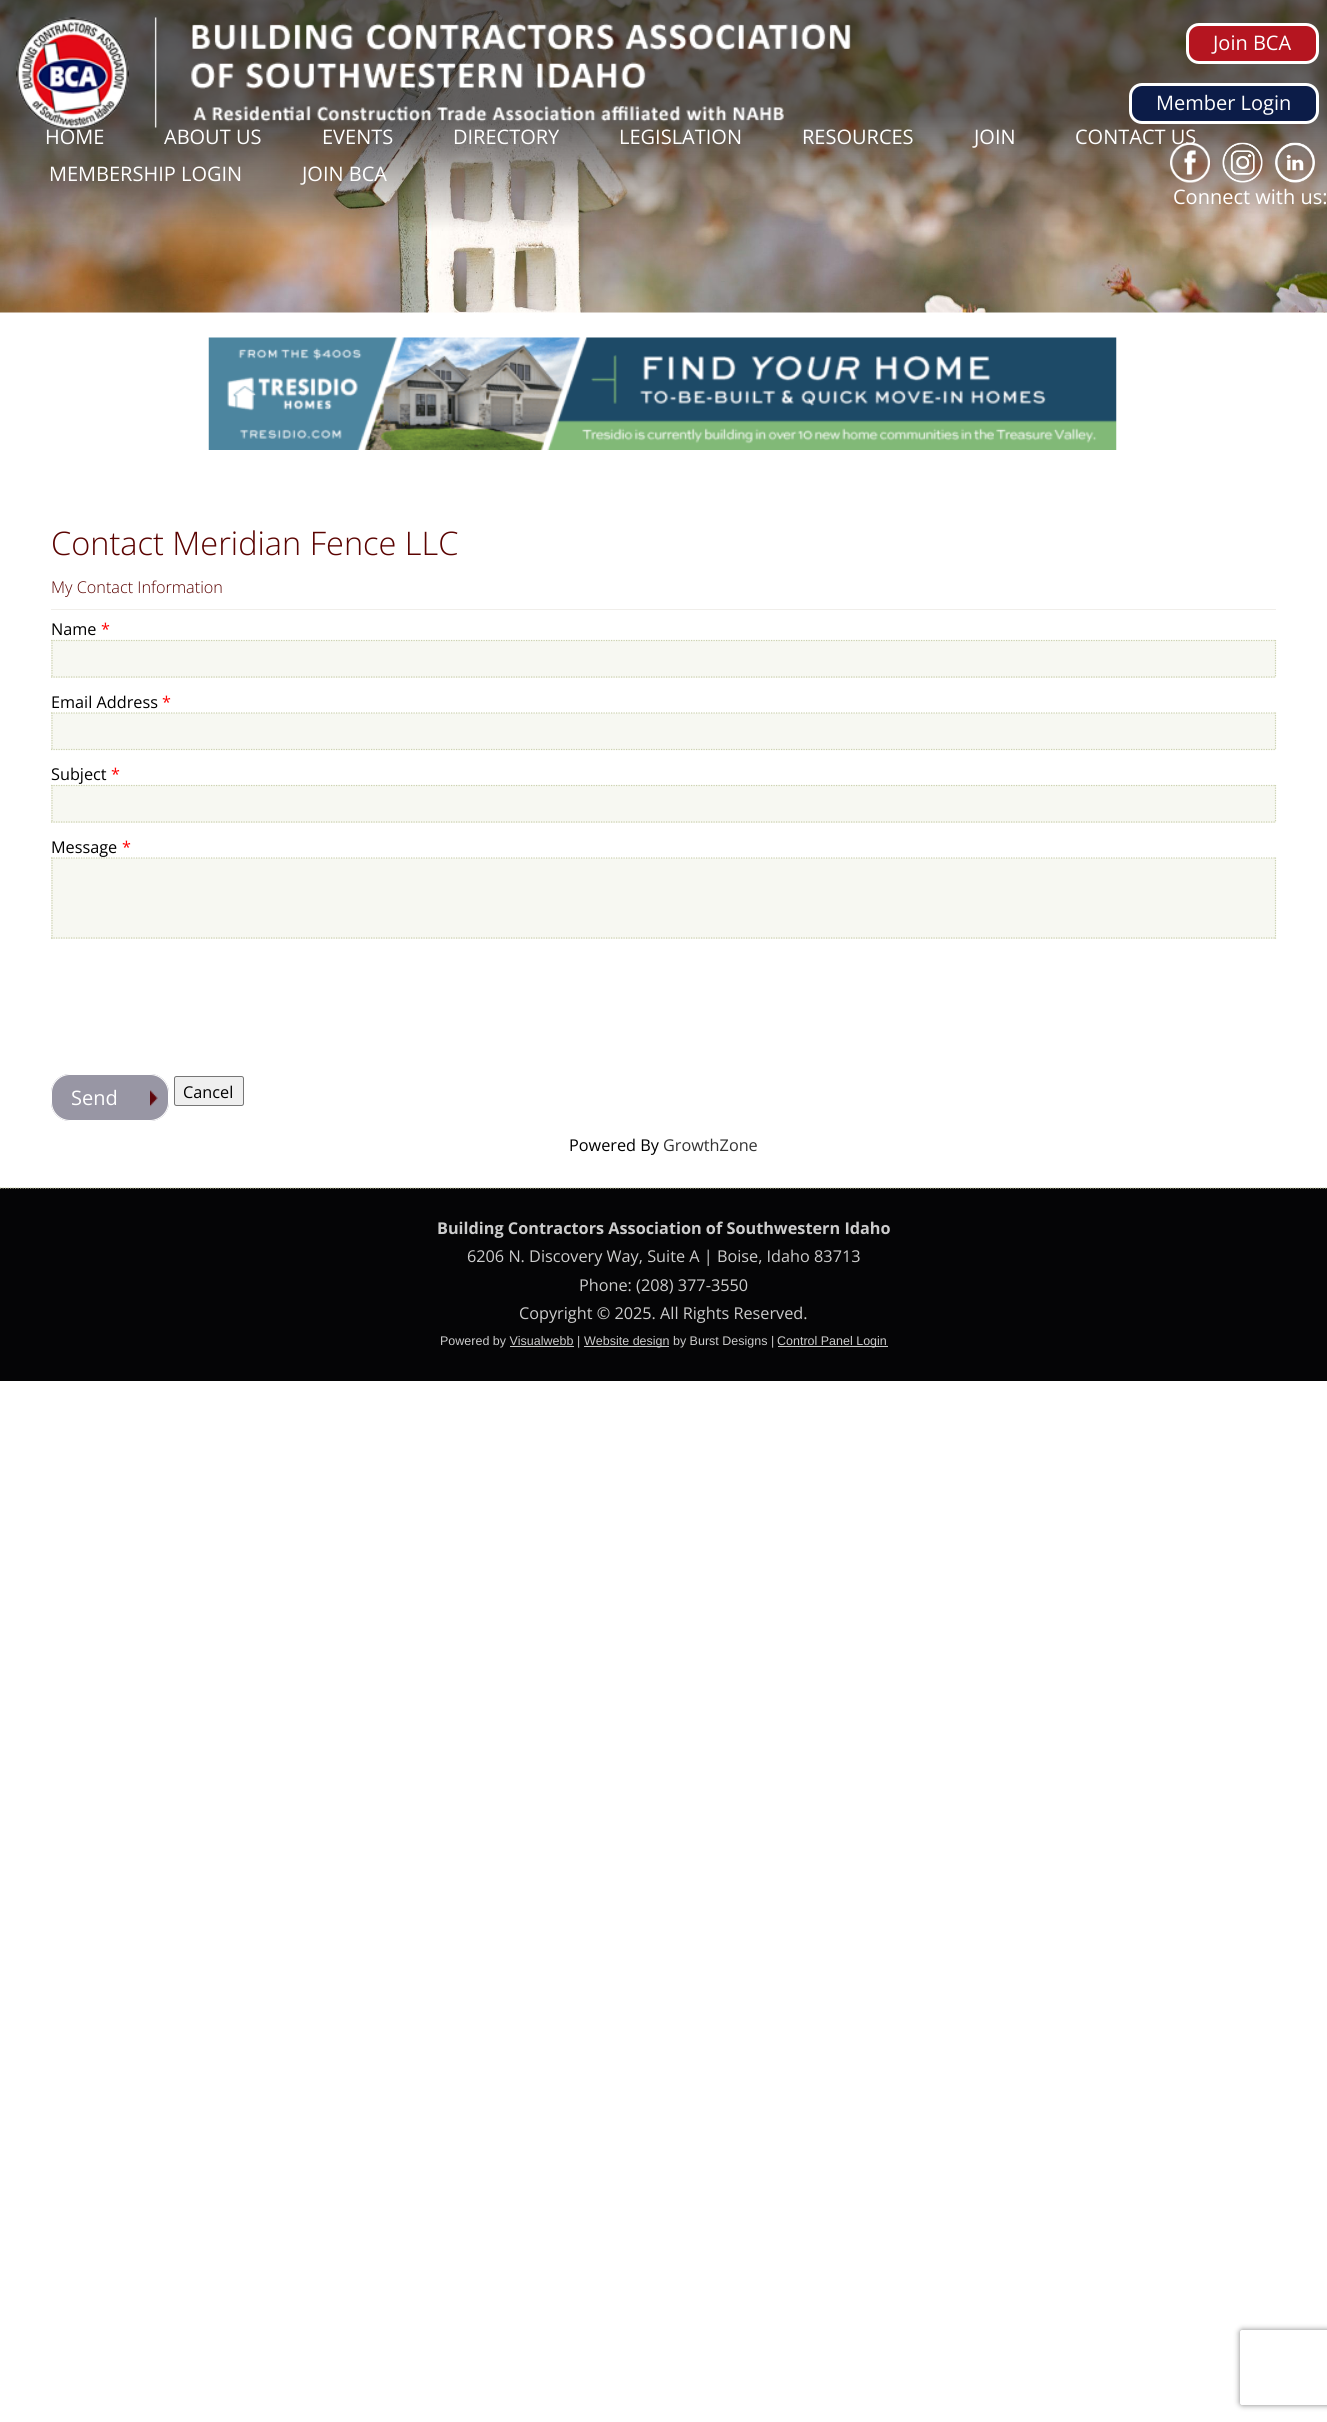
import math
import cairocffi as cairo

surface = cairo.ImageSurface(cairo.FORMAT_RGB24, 1327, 2422)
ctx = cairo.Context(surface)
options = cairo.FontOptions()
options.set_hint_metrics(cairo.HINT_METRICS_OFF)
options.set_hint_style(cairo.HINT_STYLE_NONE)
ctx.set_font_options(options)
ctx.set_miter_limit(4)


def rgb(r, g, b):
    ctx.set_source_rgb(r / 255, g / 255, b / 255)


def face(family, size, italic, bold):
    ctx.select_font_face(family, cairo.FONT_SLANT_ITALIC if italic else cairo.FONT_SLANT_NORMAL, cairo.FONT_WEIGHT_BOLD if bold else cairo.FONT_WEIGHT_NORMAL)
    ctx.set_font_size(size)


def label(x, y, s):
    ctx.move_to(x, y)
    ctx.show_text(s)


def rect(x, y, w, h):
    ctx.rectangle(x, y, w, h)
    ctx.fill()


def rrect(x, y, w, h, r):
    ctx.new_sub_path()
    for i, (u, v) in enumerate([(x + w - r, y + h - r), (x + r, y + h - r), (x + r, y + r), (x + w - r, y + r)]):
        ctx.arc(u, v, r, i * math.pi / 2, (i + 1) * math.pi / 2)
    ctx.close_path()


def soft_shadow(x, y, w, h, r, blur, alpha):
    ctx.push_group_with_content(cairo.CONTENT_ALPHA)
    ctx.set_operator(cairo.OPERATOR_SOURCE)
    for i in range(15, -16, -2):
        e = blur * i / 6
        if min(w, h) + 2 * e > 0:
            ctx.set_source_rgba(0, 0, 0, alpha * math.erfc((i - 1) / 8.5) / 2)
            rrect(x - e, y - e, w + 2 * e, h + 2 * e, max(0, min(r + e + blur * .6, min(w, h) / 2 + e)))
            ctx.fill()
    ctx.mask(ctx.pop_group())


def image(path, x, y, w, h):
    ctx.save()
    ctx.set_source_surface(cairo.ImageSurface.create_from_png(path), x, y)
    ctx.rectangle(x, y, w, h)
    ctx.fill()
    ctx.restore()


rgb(255, 255, 255)
ctx.paint()
image('image0.png', 0, 0, 1327, 313)
image('image1.png', 16, 17, 835, 113)
rgb(181, 21, 32)
rrect(1187.5, 24.5, 130, 38, 11.5)
ctx.fill_preserve()
rgb(255, 255, 255)
ctx.set_line_width(3)
ctx.stroke()
face('Open Sans', 20, 0, 0)
label(1213, 50, 'Join BCA')
rgb(12, 28, 72)
rrect(1130.5, 84.5, 187, 38, 11.5)
ctx.fill_preserve()
rgb(255, 255, 255)
ctx.stroke()
label(1156, 110, 'Member Login')
image('image2.png', 1170, 142, 40, 41)
image('image3.png', 1222, 142, 41, 41)
image('image4.png', 1275, 142, 40, 41)
label(1173, 204, 'Connect with us:')
label(45, 144, 'HOME')
label(164, 144, 'ABOUT US')
label(322, 144, 'EVENTS')
label(453, 144, 'DIRECTORY')
label(619, 144, 'LEGISLATION')
label(802, 144, 'RESOURCES')
label(974, 144, 'JOIN')
label(1075, 144, 'CONTACT US')
label(49, 181, 'MEMBERSHIP LOGIN')
label(302, 181, 'JOIN BCA')
image('image5.png', 208, 337, 909, 113)
face('Open Sans Light', 32.5, 0, 0)
rgb(91, 3, 1)
label(51, 555, 'Contact Meridian Fence LLC')
face('Open Sans Light', 16.25, 0, 0)
label(51, 593, 'My Contact Information')
rgb(240, 238, 234)
rect(51, 609, 1225, 1)
face('Open Sans', 16.25, 0, 0)
rgb(0, 0, 0)
label(51, 635, 'Name')
rgb(255, 0, 0)
label(101, 635, '*')
rgb(247, 248, 242)
rect(51, 640, 1225, 38)
ctx.new_path()
ctx.move_to(51, 640.5)
ctx.line_to(1276, 640.5)
rgb(205, 210, 177)
ctx.set_line_width(1.2)
ctx.set_dash([1.25, 1.25])
ctx.stroke()
ctx.new_path()
ctx.move_to(1275.5, 640)
ctx.line_to(1275.5, 677.5)
ctx.stroke()
ctx.new_path()
ctx.move_to(51, 677)
ctx.line_to(1276, 677)
ctx.stroke()
ctx.new_path()
ctx.move_to(52, 640)
ctx.line_to(52, 677.5)
ctx.stroke()
rgb(0, 0, 0)
label(51, 708, 'Email Address')
rgb(255, 0, 0)
label(162, 708, '*')
rgb(247, 248, 242)
rect(51, 713, 1225, 37)
ctx.new_path()
ctx.move_to(51, 713)
ctx.line_to(1276, 713)
rgb(205, 210, 177)
ctx.stroke()
ctx.new_path()
ctx.move_to(1275.5, 712.5)
ctx.line_to(1275.5, 750)
ctx.stroke()
ctx.new_path()
ctx.move_to(51, 749.5)
ctx.line_to(1276, 749.5)
ctx.stroke()
ctx.new_path()
ctx.move_to(52, 712.5)
ctx.line_to(52, 750)
ctx.stroke()
rgb(0, 0, 0)
label(51, 780, 'Subject')
rgb(255, 0, 0)
label(111, 780, '*')
rgb(247, 248, 242)
rect(51, 785, 1225, 38)
ctx.new_path()
ctx.move_to(51, 785.5)
ctx.line_to(1276, 785.5)
rgb(205, 210, 177)
ctx.stroke()
ctx.new_path()
ctx.move_to(1275.5, 785)
ctx.line_to(1275.5, 822.5)
ctx.stroke()
ctx.new_path()
ctx.move_to(51, 822)
ctx.line_to(1276, 822)
ctx.stroke()
ctx.new_path()
ctx.move_to(52, 785)
ctx.line_to(52, 822.5)
ctx.stroke()
rgb(0, 0, 0)
label(51, 853, 'Message')
rgb(255, 0, 0)
label(122, 853, '*')
rgb(247, 248, 242)
rect(51, 858, 1225, 81)
ctx.new_path()
ctx.move_to(51, 858)
ctx.line_to(1276, 858)
rgb(205, 210, 177)
ctx.stroke()
ctx.new_path()
ctx.move_to(1275.5, 857.5)
ctx.line_to(1275.5, 939)
ctx.stroke()
ctx.new_path()
ctx.move_to(51, 938)
ctx.line_to(1276, 938)
ctx.stroke()
ctx.new_path()
ctx.move_to(52, 857.5)
ctx.line_to(52, 939)
ctx.stroke()
rgb(152, 150, 164)
rrect(51, 1074, 118, 47, 19)
ctx.fill()
image('image6.png', 150, 1090, 8, 17)
rrect(51.5, 1074.5, 117, 46, 18.5)
rgb(255, 255, 255)
ctx.set_line_width(1)
ctx.set_dash([])
ctx.stroke()
face('Open Sans', 20, 0, 0)
label(71, 1105, 'Send')
rgb(239, 239, 239)
rrect(174.5, 1076.5, 69, 29, 2)
ctx.fill_preserve()
rgb(118, 118, 118)
ctx.stroke()
face('Open Sans', 16.25, 0, 0)
rgb(0, 0, 0)
label(183, 1098, 'Cancel')
label(569, 1151, 'Powered By')
rgb(51, 51, 51)
label(663, 1151, 'GrowthZone')
rgb(5, 5, 6)
rect(0, 1188, 1327, 193)
ctx.new_path()
ctx.move_to(0, 1188)
ctx.line_to(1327.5, 1188)
rgb(205, 210, 177)
ctx.set_line_width(1.2)
ctx.set_dash([1.25, 1.25])
ctx.stroke()
face('Open Sans', 16.25, 0, 1)
rgb(204, 204, 204)
label(437, 1234, 'Building Contractors Association of Southwestern Idaho')
face('Open Sans', 16.25, 0, 0)
label(467, 1262, '6206 N. Discovery Way, Suite A | Boise, Idaho 83713')
label(579, 1291, 'Phone: (208) 377-3550')
label(519, 1319, 'Copyright © 2025. All Rights Reserved.')
face('Liberation Sans', 12.5, 0, 0)
label(440, 1345, 'Powered by Visualwebb |')
rect(510, 1346, 64, 1)
rect(584, 1346, 85, 1)
label(584, 1345, 'Website design by Burst Designs |')
rect(778, 1346, 110, 1)
label(777, 1345, 'Control Panel Login')
ctx.save()
ctx.set_fill_rule(cairo.FILL_RULE_EVEN_ODD)
ctx.new_path()
ctx.move_to(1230, 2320)
ctx.line_to(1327, 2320)
ctx.line_to(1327, 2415)
ctx.line_to(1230, 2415)
ctx.close_path()
ctx.move_to(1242.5, 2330)
ctx.line_to(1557.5, 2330)
ctx.curve_to(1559, 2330, 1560, 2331, 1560, 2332.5)
ctx.line_to(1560, 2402.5)
ctx.curve_to(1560, 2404, 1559, 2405, 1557.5, 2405)
ctx.line_to(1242.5, 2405)
ctx.curve_to(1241, 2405, 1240, 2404, 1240, 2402.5)
ctx.line_to(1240, 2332.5)
ctx.curve_to(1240, 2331, 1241, 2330, 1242.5, 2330)
ctx.close_path()
ctx.clip()
rgb(128, 128, 128)
soft_shadow(1240, 2330, 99, 75, 2.5, 3, 1)
ctx.restore()
surface.write_to_png('render.png')
